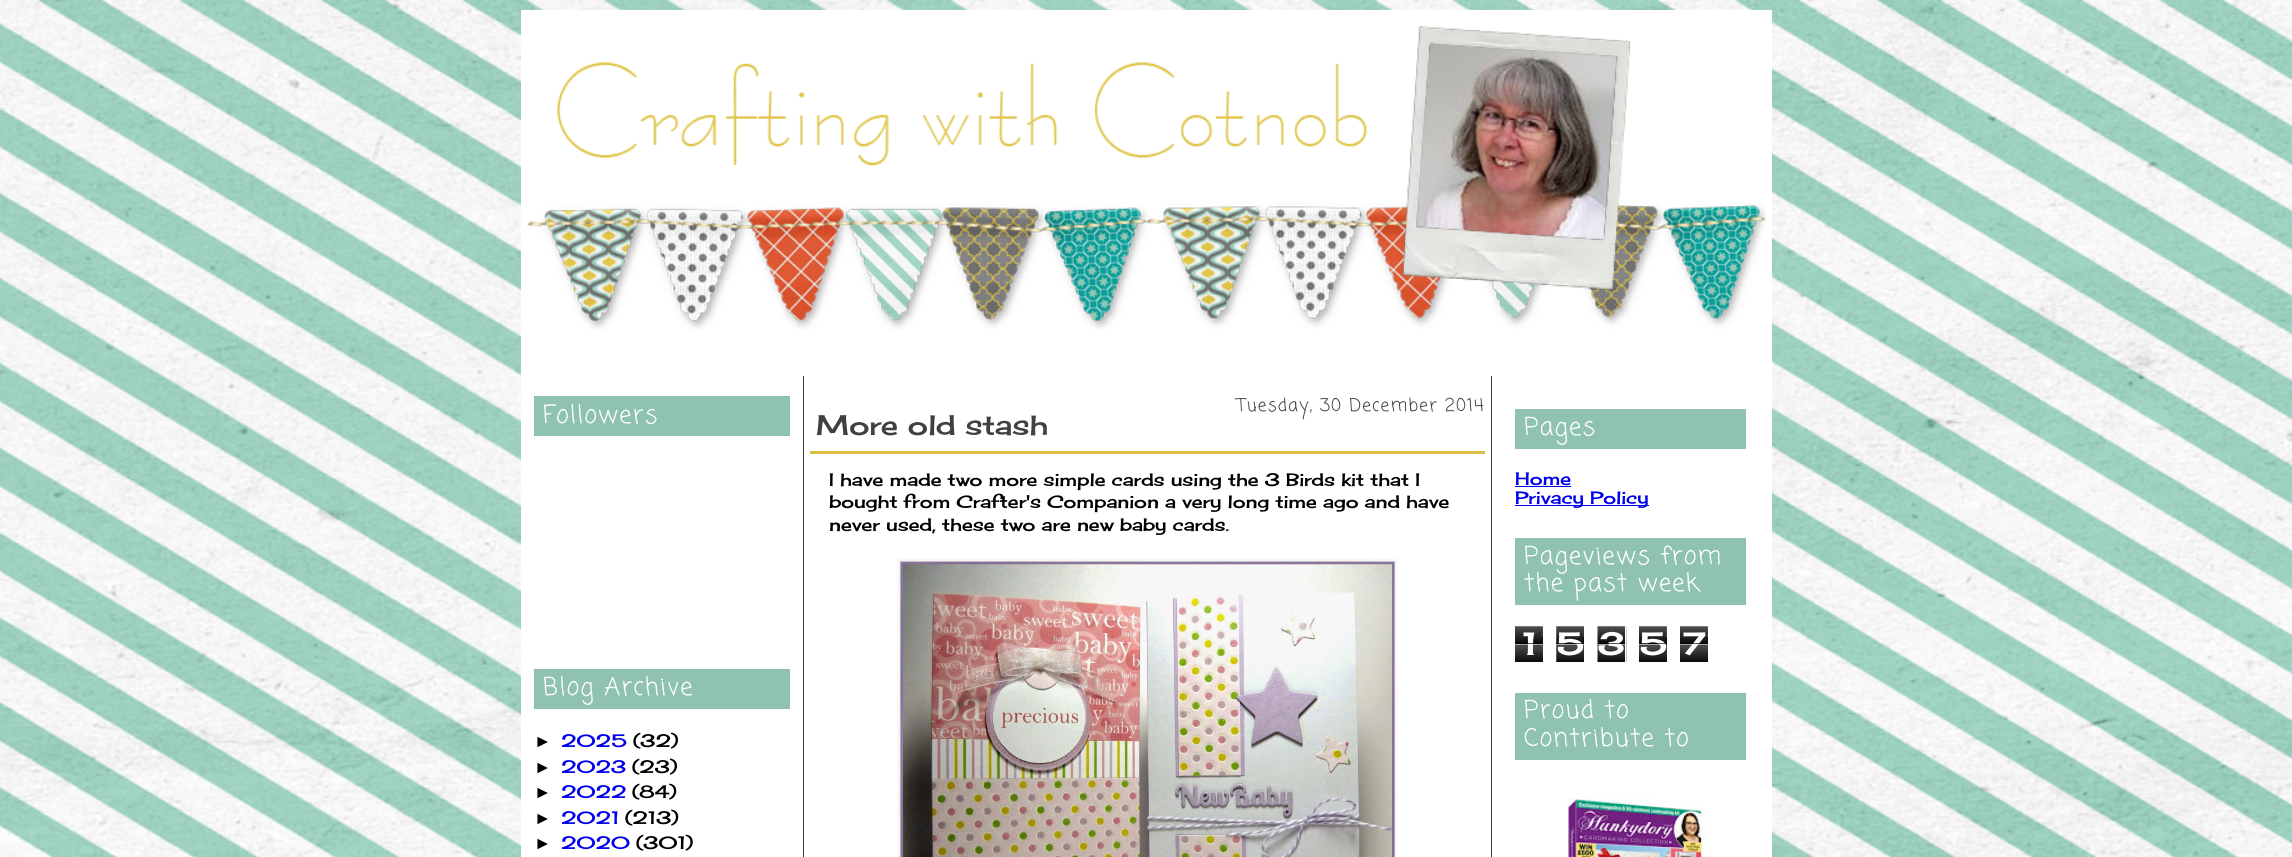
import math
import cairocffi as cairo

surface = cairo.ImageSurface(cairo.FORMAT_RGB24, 2292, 857)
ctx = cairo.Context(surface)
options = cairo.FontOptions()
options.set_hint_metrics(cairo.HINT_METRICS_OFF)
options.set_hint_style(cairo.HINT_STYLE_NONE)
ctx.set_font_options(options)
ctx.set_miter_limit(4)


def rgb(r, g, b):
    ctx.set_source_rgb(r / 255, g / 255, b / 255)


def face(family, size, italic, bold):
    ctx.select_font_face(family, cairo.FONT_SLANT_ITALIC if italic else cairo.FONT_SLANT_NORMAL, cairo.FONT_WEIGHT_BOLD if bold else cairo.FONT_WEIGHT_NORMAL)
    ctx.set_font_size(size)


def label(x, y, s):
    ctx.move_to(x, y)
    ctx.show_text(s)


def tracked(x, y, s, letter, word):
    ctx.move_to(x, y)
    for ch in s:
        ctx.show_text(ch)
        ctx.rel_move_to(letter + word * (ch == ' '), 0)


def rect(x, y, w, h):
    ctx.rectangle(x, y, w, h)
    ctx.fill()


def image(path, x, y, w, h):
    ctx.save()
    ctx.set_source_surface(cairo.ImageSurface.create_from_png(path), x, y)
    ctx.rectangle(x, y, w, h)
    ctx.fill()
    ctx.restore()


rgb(255, 255, 255)
ctx.paint()
image('image0.png', 0, 0, 2292, 857)
rgb(255, 255, 255)
rect(521, 10, 1251, 847)
image('image1.png', 527, 26, 1240, 304)
rgb(143, 194, 177)
rect(534, 396, 256, 40)
face('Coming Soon', 24.75, 0, 0)
rgb(255, 255, 255)
tracked(543, 423, 'Followers', 1.25, 0)
rgb(143, 194, 177)
rect(534, 669, 256, 40)
rgb(255, 255, 255)
tracked(543, 695, 'Blog Archive', 1.25, 0)
face('Liberation Sans', 17.5, 0, 0)
rgb(0, 0, 0)
label(534, 747, '►')
face('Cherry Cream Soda', 17.5, 0, 0)
rgb(0, 0, 238)
label(561, 747, '2025')
rgb(0, 0, 0)
label(633, 747, '(32)')
face('Liberation Sans', 17.5, 0, 0)
label(534, 773, '►')
face('Cherry Cream Soda', 17.5, 0, 0)
rgb(0, 0, 238)
label(561, 773, '2023')
rgb(0, 0, 0)
label(632, 773, '(23)')
face('Liberation Sans', 17.5, 0, 0)
label(534, 798, '►')
face('Cherry Cream Soda', 17.5, 0, 0)
rgb(0, 0, 238)
label(561, 798, '2022')
rgb(0, 0, 0)
label(632, 798, '(84)')
face('Liberation Sans', 17.5, 0, 0)
label(534, 824, '►')
face('Cherry Cream Soda', 17.5, 0, 0)
rgb(0, 0, 238)
label(561, 824, '2021')
rgb(0, 0, 0)
label(625, 824, '(213)')
face('Liberation Sans', 17.5, 0, 0)
label(534, 849, '►')
face('Cherry Cream Soda', 17.5, 0, 0)
rgb(0, 0, 238)
label(561, 849, '2020')
rgb(0, 0, 0)
label(636, 849, '(301)')
rgb(64, 64, 64)
rect(1491, 376, 1, 481)
rect(803, 376, 1, 481)
face('Coming Soon', 17.5, 0, 0)
tracked(1237, 411, 'Tuesday, 30 December 2014', 1.25, 0)
rgb(219, 191, 68)
rect(810, 451, 675, 3)
face('Cherry Cream Soda', 27.5, 0, 0)
rgb(64, 64, 64)
label(816, 435, 'More old stash')
face('Cherry Cream Soda', 17.5, 0, 0)
rgb(0, 0, 0)
label(829, 486, 'I have made two more simple cards using the 3 Birds kit that I')
label(829, 508, 'bought from Crafter\'s Companion a very long time ago and have')
label(829, 531, 'never used, these two are new baby cards.')
image('image2.png', 897, 558, 501, 299)
rgb(143, 194, 177)
rect(1515, 409, 231, 40)
face('Coming Soon', 24.75, 0, 0)
rgb(255, 255, 255)
tracked(1524, 435, 'Pages', 1.25, 0)
face('Cherry Cream Soda', 17.5, 0, 0)
rgb(0, 0, 238)
label(1515, 485, 'Home')
rect(1515, 486, 56, 1)
rect(1515, 505, 134, 1)
label(1515, 504, 'Privacy Policy')
rgb(143, 194, 177)
rect(1515, 538, 231, 67)
face('Coming Soon', 24.75, 0, 0)
rgb(255, 255, 255)
tracked(1524, 564, 'Pageviews from', 1.25, 0)
tracked(1524, 591, 'the past week', 1.25, 0)
image('image3.png', 1515, 626, 28, 36)
face('Cherry Cream Soda', 30, 0, 1)
label(1522, 655, '1')
ctx.set_source_rgba(0, 0, 0, 0.65)
rect(1515, 643, 28, 1)
ctx.set_source_rgba(1, 1, 1, 0.65)
rect(1515, 644, 28, 1)
image('image4.png', 1556, 626, 28, 36)
rgb(255, 255, 255)
label(1556, 655, '5')
ctx.set_source_rgba(0, 0, 0, 0.65)
rect(1556, 643, 28, 1)
ctx.set_source_rgba(1, 1, 1, 0.65)
rect(1556, 644, 28, 1)
image('image5.png', 1597, 626, 30, 37)
ctx.rectangle(1596.5, 625.5, 29, 37)
rgb(255, 255, 255)
ctx.set_line_width(1)
ctx.stroke()
label(1598, 655, '3')
ctx.set_source_rgba(0, 0, 0, 0.65)
rect(1598, 643, 27, 1)
ctx.set_source_rgba(1, 1, 1, 0.65)
rect(1598, 644, 27, 1)
image('image6.png', 1639, 626, 28, 36)
rgb(255, 255, 255)
label(1639, 655, '5')
ctx.set_source_rgba(0, 0, 0, 0.65)
rect(1639, 643, 27, 1)
ctx.set_source_rgba(1, 1, 1, 0.65)
rect(1639, 644, 27, 1)
image('image3.png', 1680, 626, 28, 36)
rgb(255, 255, 255)
label(1682, 655, '7')
ctx.set_source_rgba(0, 0, 0, 0.65)
rect(1680, 643, 28, 1)
ctx.set_source_rgba(1, 1, 1, 0.65)
rect(1680, 644, 28, 1)
rgb(143, 194, 177)
rect(1515, 693, 231, 67)
face('Coming Soon', 24.75, 0, 0)
rgb(255, 255, 255)
tracked(1524, 718, 'Proud to', 1.25, 0)
tracked(1524, 746, 'Contribute to', 1.25, 0)
image('image7.png', 1567, 798, 139, 59)
surface.write_to_png('render.png')
